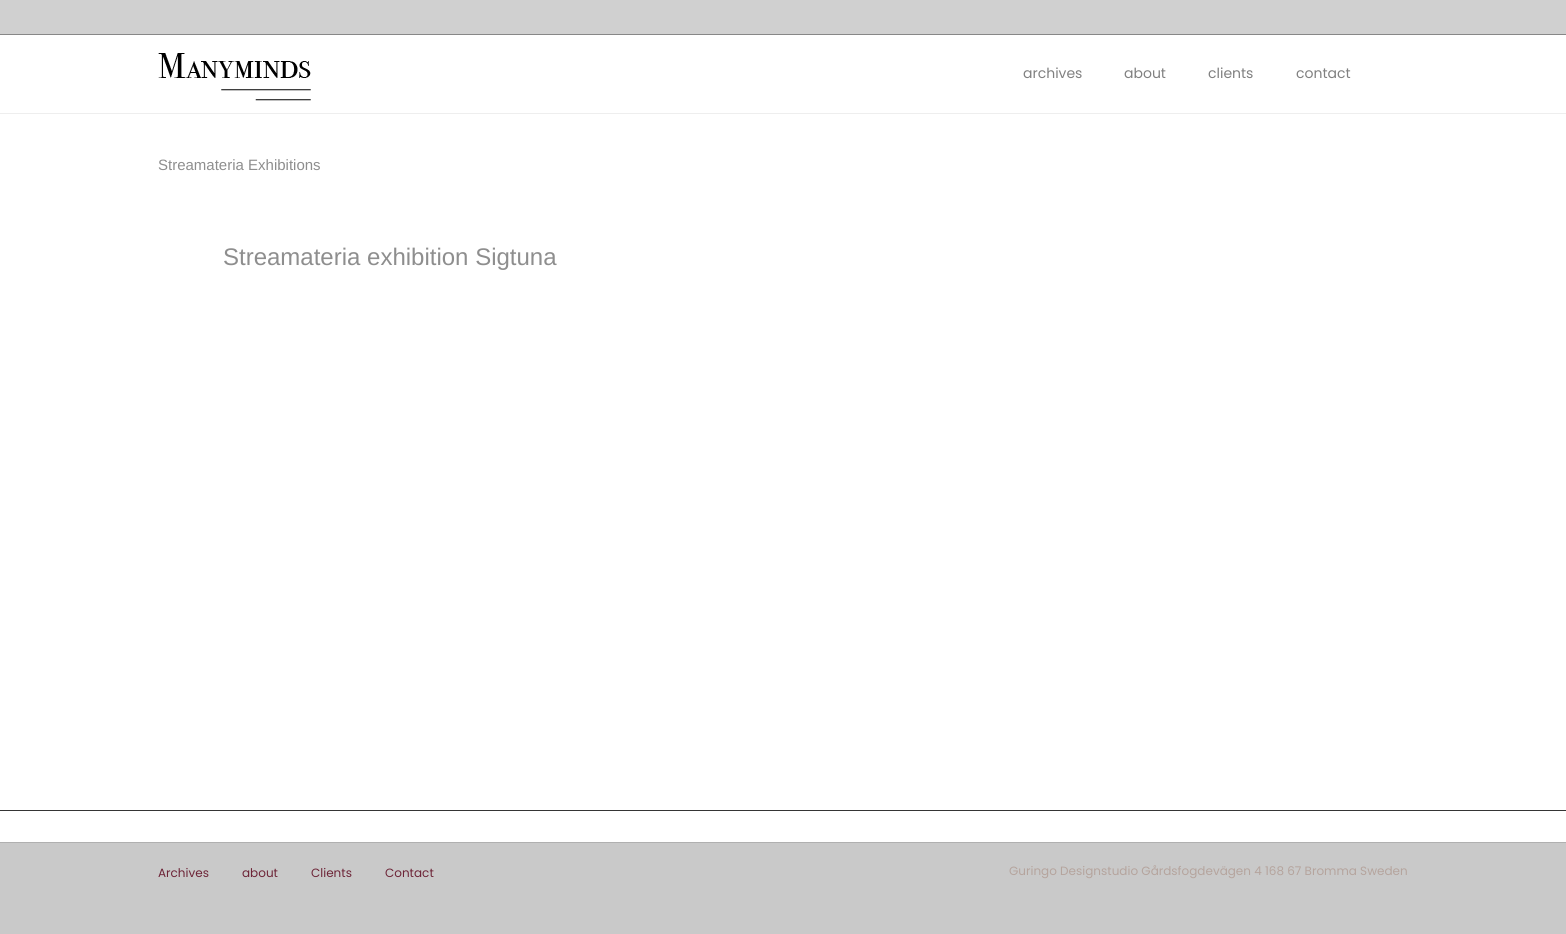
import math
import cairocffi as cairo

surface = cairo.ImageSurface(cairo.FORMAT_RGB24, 1566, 934)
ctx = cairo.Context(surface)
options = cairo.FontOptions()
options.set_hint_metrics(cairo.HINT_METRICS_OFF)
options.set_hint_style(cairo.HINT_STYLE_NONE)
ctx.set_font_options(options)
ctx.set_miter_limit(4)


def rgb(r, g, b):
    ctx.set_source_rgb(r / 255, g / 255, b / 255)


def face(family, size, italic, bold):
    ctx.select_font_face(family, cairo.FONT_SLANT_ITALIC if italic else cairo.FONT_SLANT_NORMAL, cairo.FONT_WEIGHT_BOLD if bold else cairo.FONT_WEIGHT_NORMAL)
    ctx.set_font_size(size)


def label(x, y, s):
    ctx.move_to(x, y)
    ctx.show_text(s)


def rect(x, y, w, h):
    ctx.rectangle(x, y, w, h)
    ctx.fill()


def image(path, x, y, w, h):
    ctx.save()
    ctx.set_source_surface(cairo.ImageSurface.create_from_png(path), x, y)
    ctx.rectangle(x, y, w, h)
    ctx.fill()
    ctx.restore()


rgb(255, 255, 255)
ctx.paint()
rgb(208, 208, 208)
rect(0, 0, 1566, 34)
rgb(135, 135, 135)
rect(0, 34, 1566, 1)
rgb(238, 238, 238)
rect(0, 113, 1566, 1)
image('image0.png', 158, 53, 153, 48)
face('Poppins', 14, 0, 0)
rgb(128, 128, 128)
label(1023, 78, 'archives')
label(1124, 78, 'about')
label(1208, 78, 'clients')
label(1296, 78, 'contact')
face('Liberation Sans', 15, 0, 0)
rgb(142, 142, 142)
label(158, 170, 'Streamateria Exhibitions')
face('Liberation Sans', 24, 0, 0)
label(223, 265, 'Streamateria exhibition Sigtuna')
rgb(53, 53, 53)
rect(0, 810, 1566, 1)
rgb(201, 201, 201)
rect(0, 843, 1566, 91)
rgb(176, 176, 176)
rect(0, 842, 1566, 1)
face('Poppins', 12, 0, 0)
rgb(109, 36, 55)
label(158, 877, 'Archives')
label(242, 877, 'about')
label(311, 877, 'Clients')
label(385, 877, 'Contact')
rgb(181, 164, 157)
label(1009, 875, 'Guringo Designstudio Gårdsfogdevägen 4 168 67 Bromma Sweden')
surface.write_to_png('render.png')
